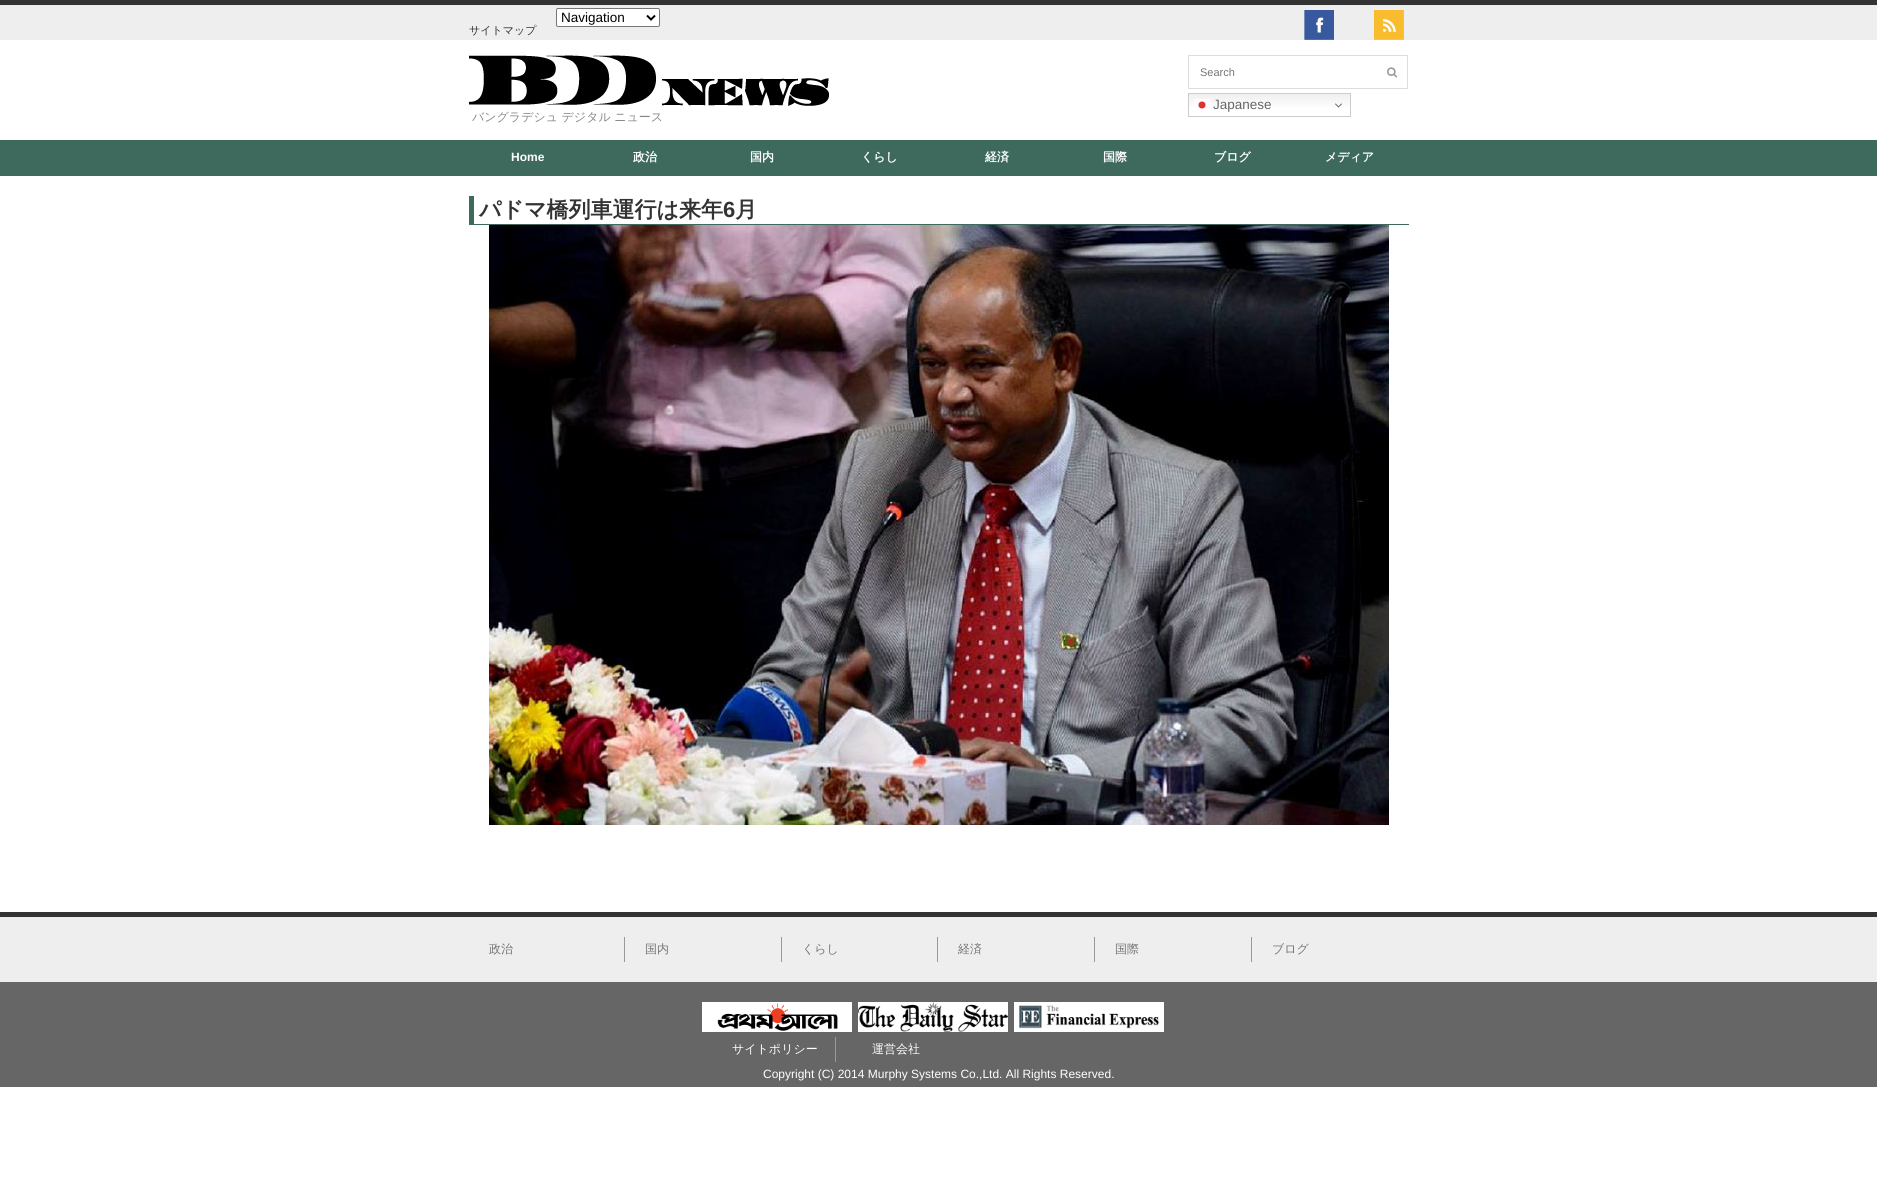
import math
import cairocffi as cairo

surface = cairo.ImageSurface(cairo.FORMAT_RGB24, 1877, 1197)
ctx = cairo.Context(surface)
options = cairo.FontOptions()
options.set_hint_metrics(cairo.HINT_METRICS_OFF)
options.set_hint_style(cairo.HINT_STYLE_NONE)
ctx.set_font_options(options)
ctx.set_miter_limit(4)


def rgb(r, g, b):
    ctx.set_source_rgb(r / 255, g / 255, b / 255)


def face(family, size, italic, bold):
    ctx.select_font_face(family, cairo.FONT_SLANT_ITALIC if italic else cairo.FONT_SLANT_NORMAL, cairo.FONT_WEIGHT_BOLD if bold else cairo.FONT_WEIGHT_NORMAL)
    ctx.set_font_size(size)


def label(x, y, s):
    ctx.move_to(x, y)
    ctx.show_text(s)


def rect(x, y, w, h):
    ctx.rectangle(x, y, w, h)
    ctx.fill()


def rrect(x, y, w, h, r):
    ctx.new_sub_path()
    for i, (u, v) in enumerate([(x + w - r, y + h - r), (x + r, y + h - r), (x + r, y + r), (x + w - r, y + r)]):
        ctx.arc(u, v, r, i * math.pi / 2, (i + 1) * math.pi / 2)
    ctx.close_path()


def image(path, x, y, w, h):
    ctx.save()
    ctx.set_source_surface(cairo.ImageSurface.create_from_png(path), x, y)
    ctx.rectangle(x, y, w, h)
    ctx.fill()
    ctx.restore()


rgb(255, 255, 255)
ctx.paint()
rgb(238, 238, 238)
rect(0, 5, 1877, 35)
rgb(51, 51, 51)
rect(0, 0, 1877, 5)
rgb(255, 255, 255)
rrect(556.5, 8.5, 103, 18, 1.5)
ctx.fill_preserve()
rgb(118, 118, 118)
ctx.set_line_width(1)
ctx.stroke()
ctx.new_path()
ctx.move_to(647, 15.5)
ctx.line_to(651, 19.5)
ctx.line_to(655, 15.5)
rgb(0, 0, 0)
ctx.set_line_width(2)
ctx.stroke()
face('Liberation Sans', 13.5, 0, 0)
label(561, 22, 'Navigation')
face('WenQuanYi Zen Hei Medium', 11, 0, 0)
rgb(51, 51, 51)
label(469, 34, 'サイトマップ')
image('image0.png', 1304, 10, 30, 30)
image('image1.png', 1374, 10, 30, 30)
ctx.rectangle(1188.5, 55.5, 219, 33)
rgb(221, 221, 221)
ctx.set_line_width(1)
ctx.stroke()
face('Liberation Sans', 11, 0, 0)
rgb(117, 117, 117)
label(1200, 76, 'Search')
image('image2.png', 1387, 67, 11, 11)
gradient = cairo.LinearGradient(1270, 93, 1270, 117)
gradient.add_color_stop_rgba(0, 0.937, 0.937, 0.937, 1)
gradient.add_color_stop_rgba(0.7, 1, 1, 1, 1)
ctx.set_source(gradient)
rect(1189, 94, 161, 13)
gradient = cairo.LinearGradient(1270, 93, 1270, 117)
gradient.add_color_stop_rgba(0, 0.988, 0.988, 0.988, 1)
gradient.add_color_stop_rgba(0.7, 1, 1, 1, 1)
ctx.set_source(gradient)
rect(1194, 99, 16, 7)
ctx.rectangle(1188.5, 93.5, 162, 23)
rgb(204, 204, 204)
ctx.stroke()
rgb(220, 51, 51)
ctx.arc(1202, 105, 3.5, 0, 2 * math.pi)
ctx.fill()
face('Liberation Sans', 13.5, 0, 0)
rgb(102, 102, 102)
label(1213, 109, 'Japanese')
image('image3.png', 1335, 103, 7, 5)
image('image4.png', 469, 55, 360, 51)
face('WenQuanYi Zen Hei Medium', 12, 0, 0)
rgb(136, 136, 136)
label(472, 121, 'バングラデシュ デジタル ニュース')
rgb(62, 106, 94)
rect(0, 140, 1877, 36)
face('Liberation Sans', 12, 0, 1)
rgb(255, 255, 255)
label(511, 161, 'Home')
face('WenQuanYi Zen Hei', 12, 0, 1)
label(633, 161, '政治')
label(750, 161, '国内')
label(861, 161, 'くらし')
label(985, 161, '経済')
label(1103, 161, '国際')
label(1214, 161, 'ブログ')
label(1325, 161, 'メディア')
rgb(62, 106, 94)
rect(469, 224, 940, 1)
rect(469, 196, 5, 29)
face('WenQuanYi Zen Hei', 22, 0, 1)
rgb(51, 51, 51)
label(479, 217, 'パドマ橋列車運行は来年')
face('Liberation Sans', 22, 0, 1)
label(723, 217, '6')
face('WenQuanYi Zen Hei', 22, 0, 1)
label(735, 217, '月')
image('image5.png', 489, 225, 900, 600)
rgb(238, 238, 238)
rect(0, 917, 1877, 65)
rgb(51, 51, 51)
rect(0, 912, 1877, 5)
rgb(153, 153, 153)
rect(624, 937, 1, 25)
face('WenQuanYi Zen Hei Medium', 12, 0, 0)
rgb(117, 117, 117)
label(489, 953, '政治')
rgb(153, 153, 153)
rect(781, 937, 1, 25)
rgb(117, 117, 117)
label(645, 953, '国内')
rgb(153, 153, 153)
rect(937, 937, 1, 25)
rgb(117, 117, 117)
label(802, 953, 'くらし')
rgb(153, 153, 153)
rect(1094, 937, 1, 25)
rgb(117, 117, 117)
label(958, 953, '経済')
rgb(153, 153, 153)
rect(1251, 937, 1, 25)
rgb(117, 117, 117)
label(1115, 953, '国際')
label(1272, 953, 'ブログ')
rgb(102, 102, 102)
rect(0, 982, 1877, 105)
image('image6.png', 702, 1002, 150, 30)
image('image7.png', 858, 1002, 150, 30)
image('image8.png', 1014, 1002, 150, 30)
rgb(153, 153, 153)
rect(835, 1037, 1, 25)
rgb(255, 255, 255)
label(732, 1053, 'サイトポリシー')
label(872, 1053, '運営会社')
face('Liberation Sans', 12, 0, 0)
label(763, 1078, 'Copyright (C) 2014 Murphy Systems Co.,Ltd. All Rights Reserved.')
surface.write_to_png('render.png')
